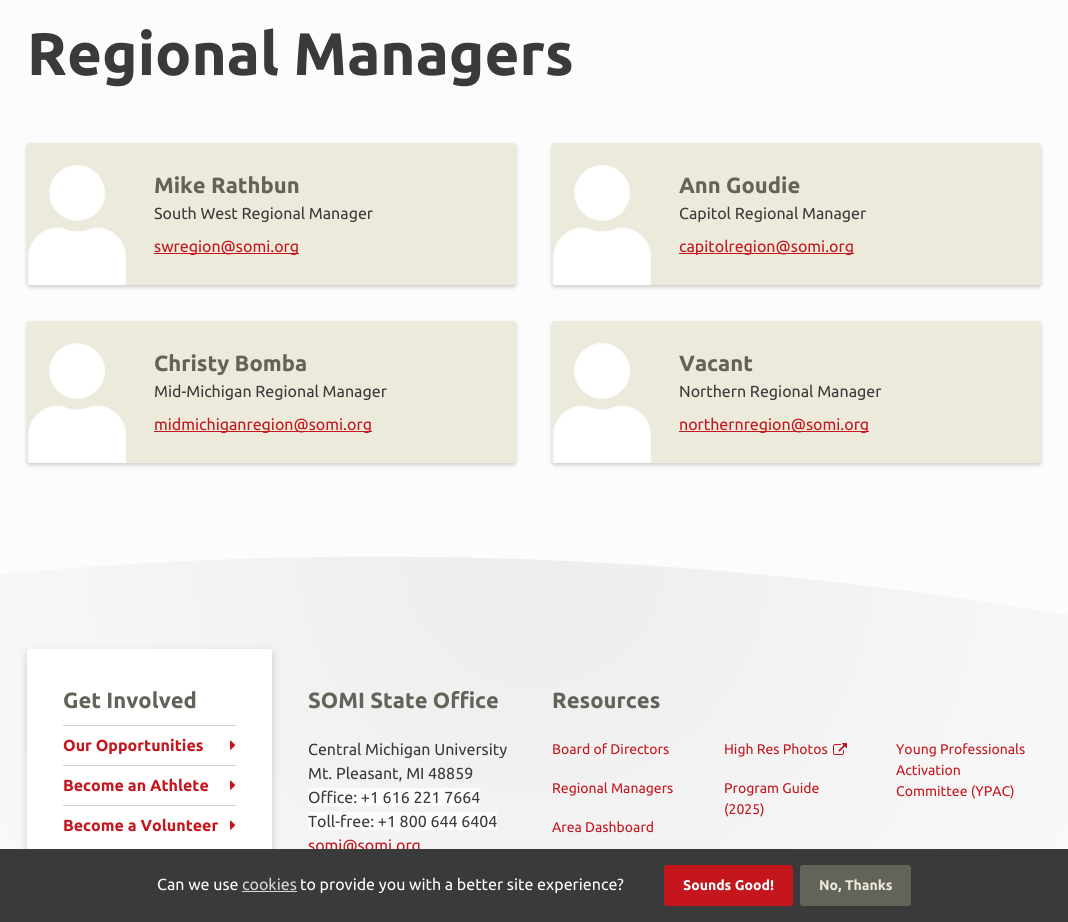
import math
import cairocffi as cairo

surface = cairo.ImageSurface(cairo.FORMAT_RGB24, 1068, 922)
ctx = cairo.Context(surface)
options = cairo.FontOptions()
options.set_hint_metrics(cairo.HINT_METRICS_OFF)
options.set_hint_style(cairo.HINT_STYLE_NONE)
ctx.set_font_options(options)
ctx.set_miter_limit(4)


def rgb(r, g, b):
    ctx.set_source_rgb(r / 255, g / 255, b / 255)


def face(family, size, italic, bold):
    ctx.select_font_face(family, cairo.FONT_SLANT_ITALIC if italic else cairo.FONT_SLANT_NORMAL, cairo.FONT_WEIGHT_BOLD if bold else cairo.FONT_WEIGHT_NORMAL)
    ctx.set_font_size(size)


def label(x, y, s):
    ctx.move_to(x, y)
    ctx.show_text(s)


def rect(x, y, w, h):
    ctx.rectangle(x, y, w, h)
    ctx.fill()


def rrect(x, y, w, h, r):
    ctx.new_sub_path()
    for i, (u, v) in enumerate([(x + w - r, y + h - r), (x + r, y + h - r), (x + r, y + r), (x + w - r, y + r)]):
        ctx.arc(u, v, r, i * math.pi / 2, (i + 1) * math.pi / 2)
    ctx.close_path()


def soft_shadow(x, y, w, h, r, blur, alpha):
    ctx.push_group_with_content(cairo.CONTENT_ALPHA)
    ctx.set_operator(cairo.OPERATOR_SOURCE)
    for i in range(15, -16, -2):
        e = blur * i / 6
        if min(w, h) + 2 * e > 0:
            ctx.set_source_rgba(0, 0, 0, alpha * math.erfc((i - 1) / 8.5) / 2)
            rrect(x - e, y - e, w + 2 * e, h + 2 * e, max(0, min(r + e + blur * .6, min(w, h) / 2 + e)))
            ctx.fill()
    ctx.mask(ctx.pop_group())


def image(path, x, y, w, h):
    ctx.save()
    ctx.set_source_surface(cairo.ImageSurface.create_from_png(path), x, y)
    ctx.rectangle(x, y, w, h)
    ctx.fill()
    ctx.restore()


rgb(253, 252, 252)
ctx.paint()
face('Ubuntu', 60, 0, 1)
rgb(58, 58, 58)
label(27, 75, 'Regional Managers')
rgb(58, 58, 58)
soft_shadow(27, 145, 489, 142, 3, 2, 0.25)
rgb(236, 234, 219)
rrect(27, 143, 489, 142, 3)
ctx.fill()
image('image0.png', 27, 143, 100, 142)
face('Ubuntu', 22, 0, 1)
rgb(99, 99, 89)
label(154, 193, 'Mike Rathbun')
face('Ubuntu', 16, 0, 0)
rgb(58, 58, 58)
label(154, 219, 'South West Regional Manager')
rgb(196, 22, 28)
rect(154, 253, 145, 1)
label(154, 252, 'swregion@somi.org')
rgb(58, 58, 58)
soft_shadow(552, 145, 489, 142, 3, 2, 0.25)
rgb(236, 234, 219)
rrect(552, 143, 489, 142, 3)
ctx.fill()
image('image1.png', 552, 143, 100, 142)
face('Ubuntu', 22, 0, 1)
rgb(99, 99, 89)
label(679, 193, 'Ann Goudie')
face('Ubuntu', 16, 0, 0)
rgb(58, 58, 58)
label(679, 219, 'Capitol Regional Manager')
rgb(196, 22, 28)
rect(679, 253, 175, 1)
label(679, 252, 'capitolregion@somi.org')
rgb(58, 58, 58)
soft_shadow(27, 323, 489, 142, 3, 2, 0.25)
rgb(236, 234, 219)
rrect(27, 321, 489, 142, 3)
ctx.fill()
image('image0.png', 27, 321, 100, 142)
face('Ubuntu', 22, 0, 1)
rgb(99, 99, 89)
label(154, 371, 'Christy Bomba')
face('Ubuntu', 16, 0, 0)
rgb(58, 58, 58)
label(154, 397, 'Mid-Michigan Regional Manager')
rgb(196, 22, 28)
rect(154, 431, 218, 1)
label(154, 430, 'midmichiganregion@somi.org')
rgb(58, 58, 58)
soft_shadow(552, 323, 489, 142, 3, 2, 0.25)
rgb(236, 234, 219)
rrect(552, 321, 489, 142, 3)
ctx.fill()
image('image1.png', 552, 321, 100, 142)
face('Ubuntu', 22, 0, 1)
rgb(99, 99, 89)
label(679, 371, 'Vacant')
face('Ubuntu', 16, 0, 0)
rgb(58, 58, 58)
label(679, 397, 'Northern Regional Manager')
rgb(196, 22, 28)
rect(679, 431, 190, 1)
label(679, 430, 'northernregion@somi.org')
gradient = cairo.RadialGradient(534, 556, 0, 534, 556, 775)
gradient.add_color_stop_rgba(0, 0.929, 0.929, 0.933, 1)
gradient.add_color_stop_rgba(1, 0.992, 0.988, 0.988, 1)
ctx.set_source(gradient)
rect(0, 556, 1068, 293)
rgb(253, 252, 252)
ctx.set_fill_rule(cairo.FILL_RULE_EVEN_ODD)
ctx.new_path()
ctx.move_to(0, 556)
ctx.line_to(1068, 556)
ctx.line_to(1068, 615)
ctx.curve_to(716, 555, 356, 541, 0, 574)
ctx.close_path()
ctx.fill()
rgb(58, 58, 58)
soft_shadow(27, 653, 245, 232, 3, 4, 0.25)
rgb(255, 255, 255)
rrect(27, 649, 245, 232, 3)
ctx.fill()
face('Ubuntu', 22, 0, 1)
rgb(99, 99, 89)
label(63, 708, 'Get Involved')
rgb(212, 210, 197)
rect(63, 725, 173, 1)
face('Ubuntu', 16, 0, 1)
rgb(196, 22, 28)
label(63, 751, 'Our Opportunities')
image('image2.png', 230, 740, 6, 10)
rgb(212, 210, 197)
rect(63, 765, 173, 1)
rgb(196, 22, 28)
label(63, 791, 'Become an Athlete')
image('image2.png', 230, 780, 6, 10)
rgb(212, 210, 197)
rect(63, 805, 173, 1)
rgb(196, 22, 28)
label(63, 831, 'Become a Volunteer')
image('image2.png', 230, 820, 6, 10)
face('Ubuntu', 22, 0, 1)
rgb(99, 99, 89)
label(308, 708, 'SOMI State Office')
face('Ubuntu', 16, 0, 0)
rgb(58, 58, 58)
label(308, 755, 'Central Michigan University')
label(308, 779, 'Mt. Pleasant, MI 48859')
rgb(253, 252, 252)
rect(308, 788, 172, 18)
rgb(58, 58, 58)
label(308, 803, 'Office: +1 616 221 7664')
rgb(253, 252, 252)
rect(308, 812, 189, 18)
rgb(58, 58, 58)
label(308, 827, 'Toll-free: +1 800 644 6404')
rgb(196, 22, 28)
label(308, 851, 'somi@somi.org')
face('Ubuntu', 22, 0, 1)
rgb(99, 99, 89)
label(552, 708, 'Resources')
face('Ubuntu', 14, 0, 0)
rgb(196, 22, 28)
label(552, 754, 'Board of Directors')
label(724, 754, 'High Res Photos')
image('image3.png', 833, 743, 14, 12)
label(896, 754, 'Young Professionals')
label(896, 775, 'Activation')
label(896, 796, 'Committee (YPAC)')
label(552, 793, 'Regional Managers')
label(724, 793, 'Program Guide')
label(724, 814, '(2025)')
label(552, 832, 'Area Dashboard')
rgb(58, 58, 58)
rect(0, 849, 1068, 73)
face('Ubuntu', 16, 0, 0)
rgb(255, 255, 255)
label(157, 890, 'Can we use')
rgb(216, 216, 216)
label(242, 890, 'cookies')
rect(242, 891, 55, 1)
rgb(255, 255, 255)
label(300, 890, 'to provide you with a better site experience?')
rgb(196, 22, 28)
rrect(664, 865, 129, 41, 3)
ctx.fill()
face('Ubuntu', 14, 0, 1)
rgb(255, 255, 255)
label(683, 890, 'Sounds Good!')
rgb(99, 99, 89)
rrect(800, 865, 111, 41, 3)
ctx.fill()
rgb(236, 234, 219)
label(819, 890, 'No, Thanks')
surface.write_to_png('render.png')
